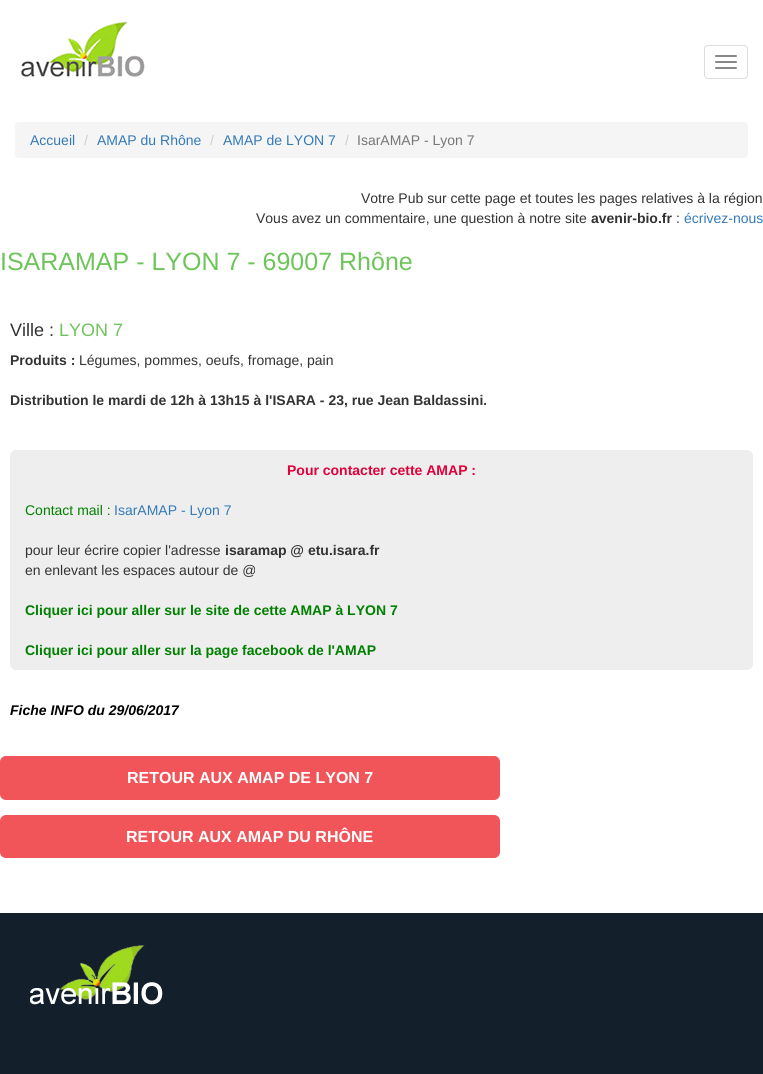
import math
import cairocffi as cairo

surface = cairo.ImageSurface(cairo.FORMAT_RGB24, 763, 1074)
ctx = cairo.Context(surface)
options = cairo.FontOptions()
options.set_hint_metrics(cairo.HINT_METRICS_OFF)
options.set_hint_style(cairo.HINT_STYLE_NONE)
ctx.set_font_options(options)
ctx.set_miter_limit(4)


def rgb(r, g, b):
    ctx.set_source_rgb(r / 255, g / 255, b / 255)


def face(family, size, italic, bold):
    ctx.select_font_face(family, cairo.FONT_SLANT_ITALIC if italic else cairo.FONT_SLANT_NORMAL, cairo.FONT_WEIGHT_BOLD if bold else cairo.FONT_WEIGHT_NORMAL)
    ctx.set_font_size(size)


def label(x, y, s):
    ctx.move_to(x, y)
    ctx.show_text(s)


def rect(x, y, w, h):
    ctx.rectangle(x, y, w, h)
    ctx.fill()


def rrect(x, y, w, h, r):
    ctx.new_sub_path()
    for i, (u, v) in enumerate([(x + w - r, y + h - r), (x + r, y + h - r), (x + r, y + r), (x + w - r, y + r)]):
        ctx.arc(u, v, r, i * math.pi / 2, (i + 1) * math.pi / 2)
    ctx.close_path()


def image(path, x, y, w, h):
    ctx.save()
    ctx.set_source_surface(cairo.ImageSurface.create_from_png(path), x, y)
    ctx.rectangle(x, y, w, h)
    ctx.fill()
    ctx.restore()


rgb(255, 255, 255)
ctx.paint()
image('image0.png', 21, 21, 124, 56)
rrect(704.5, 45.5, 43, 33, 3.5)
rgb(221, 221, 221)
ctx.set_line_width(1)
ctx.stroke()
rgb(136, 136, 136)
rrect(715, 55, 22, 2, 1)
ctx.fill()
rrect(715, 61, 22, 2, 1)
ctx.fill()
rrect(715, 67, 22, 2, 1)
ctx.fill()
rgb(245, 245, 245)
rrect(15, 122, 733, 36, 4)
ctx.fill()
face('Liberation Sans', 14, 0, 0)
rgb(51, 122, 183)
label(30, 145, 'Accueil')
rgb(204, 204, 204)
label(84, 145, '/')
rgb(51, 122, 183)
label(97, 145, 'AMAP du Rhône')
rgb(204, 204, 204)
label(210, 145, '/')
rgb(51, 122, 183)
label(223, 145, 'AMAP de LYON 7')
rgb(204, 204, 204)
label(345, 145, '/')
rgb(119, 119, 119)
label(357, 145, 'IsarAMAP - Lyon 7')
rgb(51, 51, 51)
label(361, 203, 'Votre Pub sur cette page et toutes les pages relatives à la région')
label(256, 223, 'Vous avez un commentaire, une question à notre site')
face('Liberation Sans', 14, 0, 1)
label(591, 223, 'avenir-bio.fr')
face('Liberation Sans', 14, 0, 0)
label(676, 223, ':')
rgb(51, 122, 183)
label(684, 223, 'écrivez-nous')
face('Liberation Sans', 25, 0, 0)
rgb(109, 197, 90)
label(0, 270, 'ISARAMAP - LYON 7 - 69007 Rhône')
face('Liberation Sans', 18, 0, 0)
rgb(51, 51, 51)
label(10, 336, 'Ville :')
rgb(109, 197, 90)
label(59, 336, 'LYON 7')
face('Liberation Sans', 14, 0, 1)
rgb(51, 51, 51)
label(10, 365, 'Produits :')
face('Liberation Sans', 14, 0, 0)
label(79, 365, 'Légumes, pommes, oeufs, fromage, pain')
face('Liberation Sans', 14, 0, 1)
label(10, 405, 'Distribution le mardi de 12h à 13h15 à l\'ISARA - 23, rue Jean Baldassini.')
rgb(238, 238, 238)
rrect(10, 450, 743, 220, 6)
ctx.fill()
rgb(223, 1, 58)
label(287, 475, 'Pour contacter cette AMAP :')
face('Liberation Sans', 14, 0, 0)
rgb(0, 128, 0)
label(25, 515, 'Contact mail :')
rgb(51, 122, 183)
label(114, 515, 'IsarAMAP - Lyon 7')
rgb(51, 51, 51)
label(25, 555, 'pour leur écrire copier l\'adresse')
face('Liberation Sans', 14, 0, 1)
label(225, 555, 'isaramap @ etu.isara.fr')
face('Liberation Sans', 14, 0, 0)
label(25, 575, 'en enlevant les espaces autour de @')
face('Liberation Sans', 14, 0, 1)
rgb(0, 128, 0)
label(25, 615, 'Cliquer ici pour aller sur le site de cette AMAP à LYON 7')
label(25, 655, 'Cliquer ici pour aller sur la page facebook de l\'AMAP')
face('Liberation Sans', 14, 1, 1)
rgb(0, 0, 0)
label(10, 715, 'Fiche INFO du 29/06/2017')
rgb(242, 85, 89)
rrect(0.5, 756.5, 499, 43, 5.5)
ctx.fill_preserve()
ctx.stroke()
face('Liberation Sans', 16, 0, 1)
rgb(255, 255, 255)
label(127, 783, 'RETOUR AUX AMAP DE LYON 7')
rgb(242, 85, 89)
rrect(0.5, 815.5, 499, 42, 5.5)
ctx.fill_preserve()
ctx.stroke()
rgb(255, 255, 255)
label(126, 842, 'RETOUR AUX AMAP DU RHÔNE')
rgb(19, 31, 43)
rect(0, 913, 763, 161)
image('image1.png', 30, 945, 133, 60)
surface.write_to_png('render.png')
